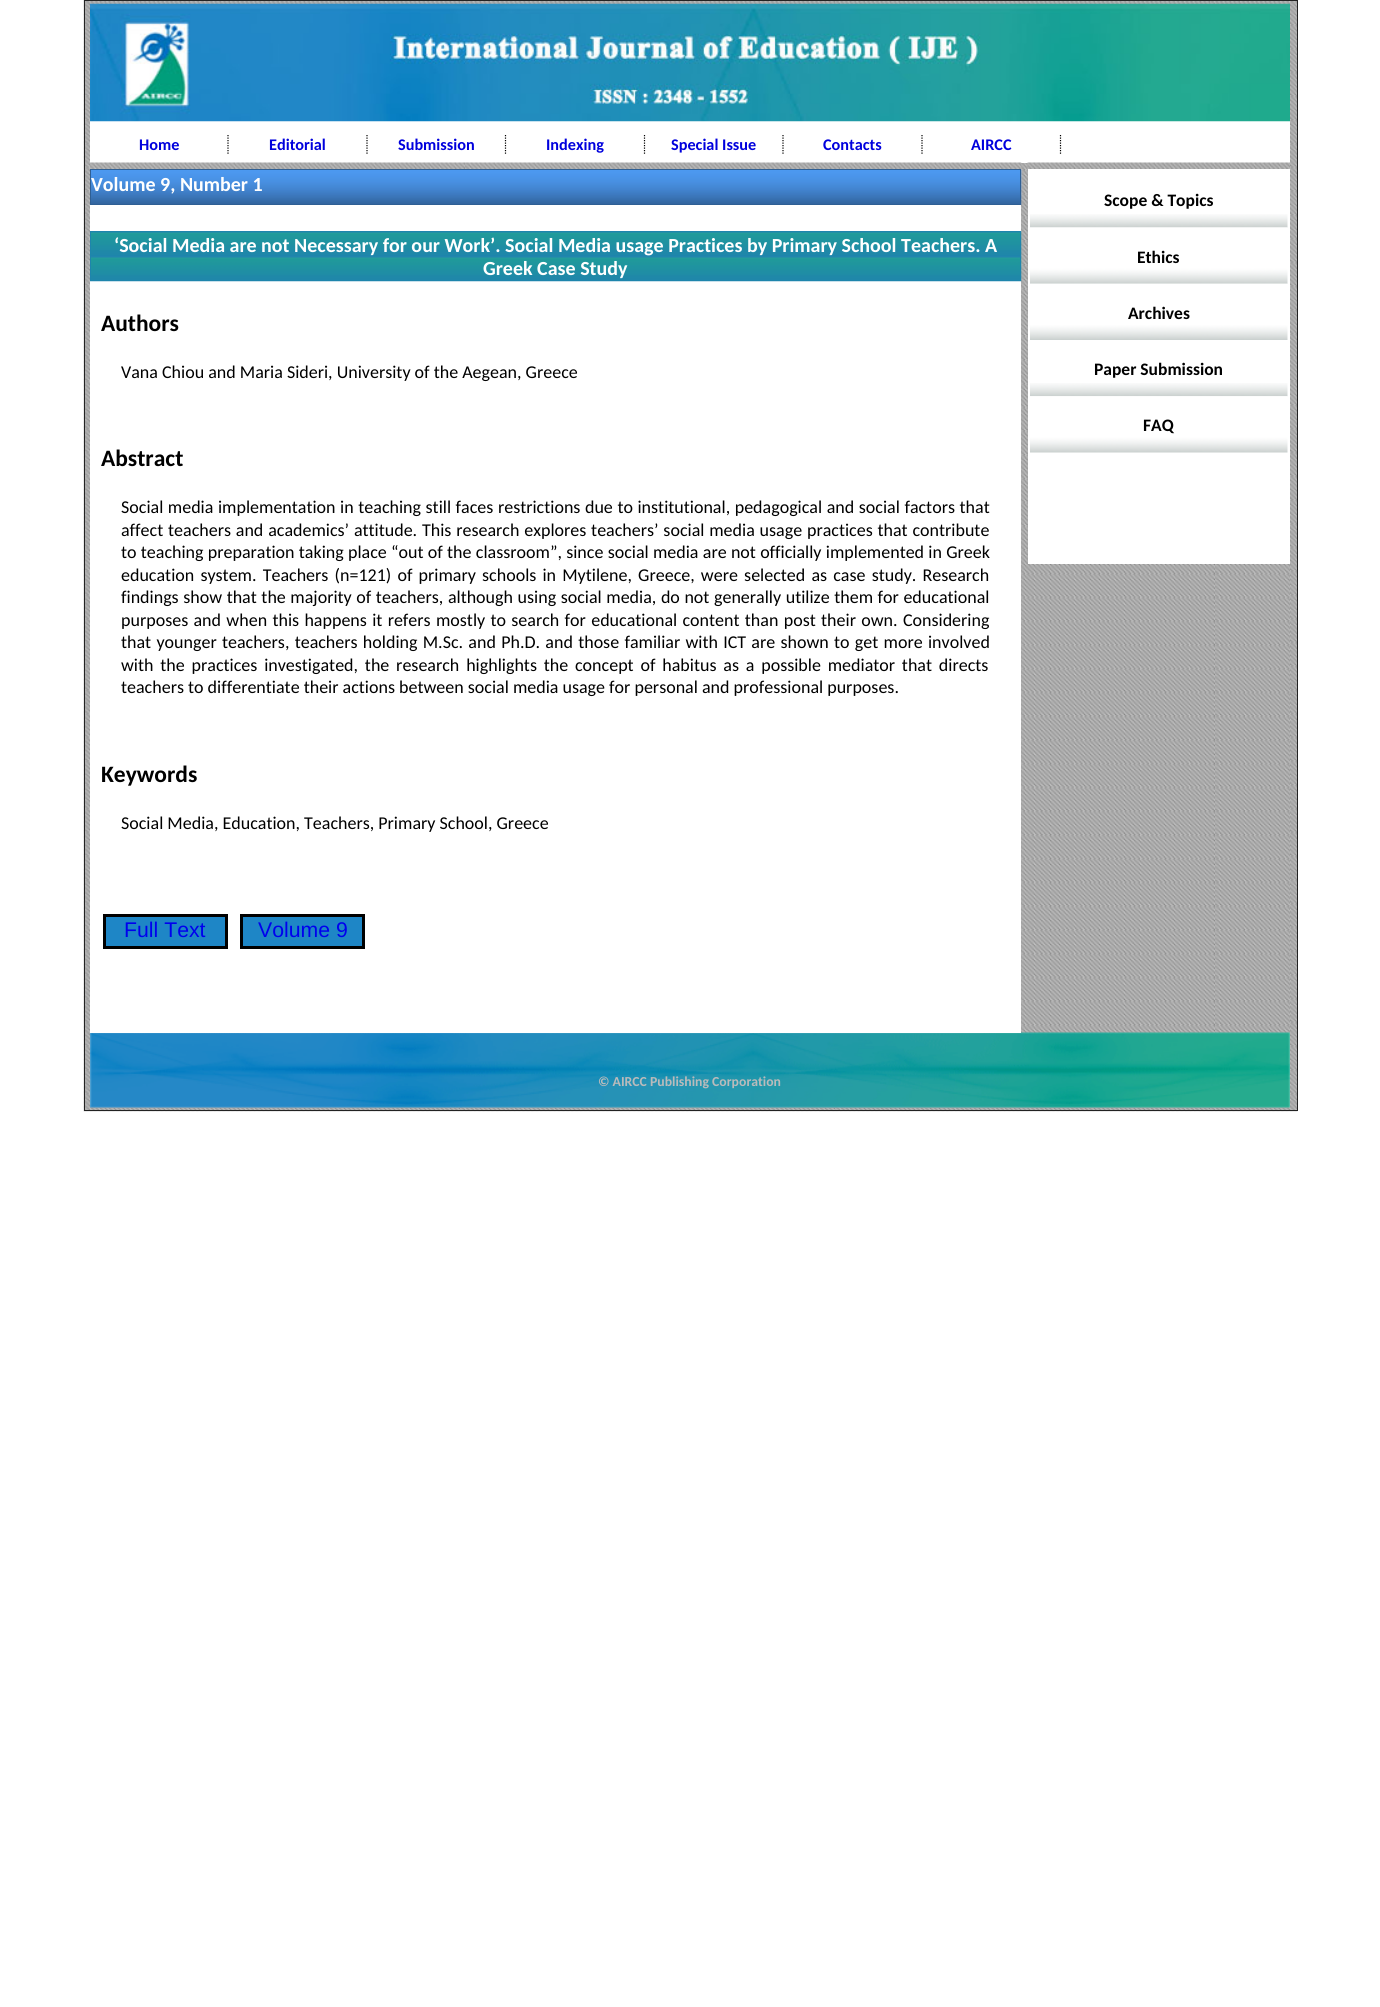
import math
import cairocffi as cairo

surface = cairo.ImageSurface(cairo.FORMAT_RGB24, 1380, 2007)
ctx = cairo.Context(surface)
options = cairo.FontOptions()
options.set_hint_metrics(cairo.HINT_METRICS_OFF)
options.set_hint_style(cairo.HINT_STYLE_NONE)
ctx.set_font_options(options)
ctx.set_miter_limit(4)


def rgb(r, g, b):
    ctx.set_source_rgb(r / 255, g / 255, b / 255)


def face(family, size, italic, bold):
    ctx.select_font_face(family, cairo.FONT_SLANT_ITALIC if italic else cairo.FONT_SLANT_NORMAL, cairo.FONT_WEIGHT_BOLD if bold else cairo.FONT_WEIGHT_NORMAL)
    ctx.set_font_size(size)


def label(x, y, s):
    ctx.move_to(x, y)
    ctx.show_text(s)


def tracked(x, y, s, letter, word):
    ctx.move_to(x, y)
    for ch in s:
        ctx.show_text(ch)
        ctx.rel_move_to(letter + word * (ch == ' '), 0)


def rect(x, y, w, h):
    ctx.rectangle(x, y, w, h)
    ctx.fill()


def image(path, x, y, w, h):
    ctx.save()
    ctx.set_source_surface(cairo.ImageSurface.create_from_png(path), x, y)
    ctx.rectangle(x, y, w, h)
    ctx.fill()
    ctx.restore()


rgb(255, 255, 255)
ctx.paint()
image('image0.png', 83, 0, 1215, 1112)
ctx.rectangle(84.5, 0.5, 1213, 1110)
rgb(34, 34, 34)
ctx.set_line_width(1)
ctx.stroke()
image('image1.png', 90, 3, 1200, 1105)
rgb(255, 255, 255)
rect(90, 121, 1200, 42)
image('image2.png', 90, 3, 1200, 119)
ctx.new_path()
ctx.move_to(228, 135)
ctx.line_to(228, 154)
rgb(0, 0, 0)
ctx.set_line_width(1.2)
ctx.set_dash([1.25, 1.25])
ctx.stroke()
face('Carlito', 16.25, 0, 1)
rgb(0, 0, 221)
label(139, 150, 'Home')
ctx.new_path()
ctx.move_to(367, 135)
ctx.line_to(367, 154)
rgb(0, 0, 0)
ctx.stroke()
rgb(0, 0, 221)
label(269, 150, 'Editorial')
ctx.new_path()
ctx.move_to(505.5, 135)
ctx.line_to(505.5, 154)
rgb(0, 0, 0)
ctx.stroke()
rgb(0, 0, 221)
label(398, 150, 'Submission')
ctx.new_path()
ctx.move_to(644.5, 135)
ctx.line_to(644.5, 154)
rgb(0, 0, 0)
ctx.stroke()
rgb(0, 0, 221)
label(546, 150, 'Indexing')
ctx.new_path()
ctx.move_to(783, 135)
ctx.line_to(783, 154)
rgb(0, 0, 0)
ctx.stroke()
rgb(0, 0, 221)
label(671, 150, 'Special Issue')
ctx.new_path()
ctx.move_to(922, 135)
ctx.line_to(922, 154)
rgb(0, 0, 0)
ctx.stroke()
rgb(0, 0, 221)
label(823, 150, 'Contacts')
ctx.new_path()
ctx.move_to(1060.5, 135)
ctx.line_to(1060.5, 154)
rgb(0, 0, 0)
ctx.stroke()
rgb(0, 0, 221)
label(971, 150, 'AIRCC')
image('image12.png', 90, 1032, 1200, 76)
rgb(255, 255, 255)
rect(90, 205, 931, 828)
image('image3.png', 90, 162, 932, 25)
image('image4.png', 91, 170, 931, 35)
ctx.rectangle(90.5, 169.5, 930, 35)
rgb(47, 95, 148)
ctx.set_line_width(1)
ctx.set_dash([])
ctx.stroke()
face('Carlito', 20, 0, 1)
rgb(255, 255, 255)
label(91, 191, 'Volume 9, Number 1')
image('image5.png', 90, 231, 932, 51)
ctx.rectangle(90.5, 231.5, 930, 49)
rgb(30, 133, 172)
ctx.stroke()
rgb(255, 255, 255)
label(114, 252, '‘Social Media are not Necessary for our Work’. Social Media usage Practices by Primary School Teachers. A')
label(483, 275, 'Greek Case Study')
face('Carlito', 23.5, 0, 1)
rgb(0, 0, 0)
label(101, 331, 'Authors')
face('Carlito', 18, 0, 0)
label(121, 378, 'Vana Chiou and Maria Sideri, University of the Aegean, Greece')
face('Carlito', 23.5, 0, 1)
label(101, 466, 'Abstract')
face('Carlito', 18, 0, 0)
tracked(121, 513, 'Social media implementation in teaching still faces restrictions due to institutional, pedagogical and social factors that', 0, 0.5)
tracked(121, 536, 'affect teachers and academics’ attitude. This research explores teachers’ social media usage practices that contribute', 0, 0.75)
tracked(121, 558, 'to teaching preparation taking place “out of the classroom”, since social media are not officially implemented in Greek', 0, 0.2)
tracked(121, 581, 'education system. Teachers (n=121) of primary schools in Mytilene, Greece, were selected as case study. Research', 0, 2.1)
tracked(121, 603, 'findings show that the majority of teachers, although using social media, do not generally utilize them for educational', 0, 0.5)
tracked(121, 626, 'purposes and when this happens it refers mostly to search for educational content than post their own. Considering', 0, 1.25)
tracked(121, 648, 'that younger teachers, teachers holding M.Sc. and Ph.D. and those familiar with ICT are shown to get more involved', 0, 1.2)
tracked(121, 671, 'with the practices investigated, the research highlights the concept of habitus as a possible mediator that directs', 0, 2.75)
label(121, 693, 'teachers to differentiate their actions between social media usage for personal and professional purposes.')
face('Carlito', 23.5, 0, 1)
label(101, 782, 'Keywords')
face('Carlito', 18, 0, 0)
label(121, 829, 'Social Media, Education, Teachers, Primary School, Greece')
rgb(30, 134, 198)
ctx.rectangle(104.5, 915.5, 122, 32)
ctx.fill_preserve()
rgb(0, 0, 0)
ctx.set_line_width(3)
ctx.stroke()
face('Liberation Sans', 21.25, 0, 0)
rgb(0, 0, 238)
label(124, 937, 'Full Text')
rgb(30, 134, 198)
ctx.rectangle(241.5, 915.5, 122, 32)
ctx.fill_preserve()
rgb(0, 0, 0)
ctx.stroke()
rgb(0, 0, 238)
label(258, 937, 'Volume 9')
rgb(255, 255, 255)
rect(1028, 455, 262, 109)
image('image6.png', 1027, 162, 263, 25)
rect(1028, 169, 262, 286)
image('image7.png', 1030, 214, 258, 14)
face('Carlito', 17.5, 0, 1)
rgb(0, 0, 0)
label(1104, 206, 'Scope & Topics')
image('image8.png', 1030, 227, 258, 57)
label(1137, 263, 'Ethics')
image('image9.png', 1030, 283, 258, 57)
label(1128, 319, 'Archives')
image('image10.png', 1030, 383, 258, 14)
label(1094, 375, 'Paper Submission')
image('image11.png', 1030, 396, 258, 57)
label(1143, 431, 'FAQ')
face('Carlito', 13.75, 0, 1)
rgb(187, 187, 187)
label(598, 1086, '© AIRCC Publishing Corporation')
surface.write_to_png('render.png')
